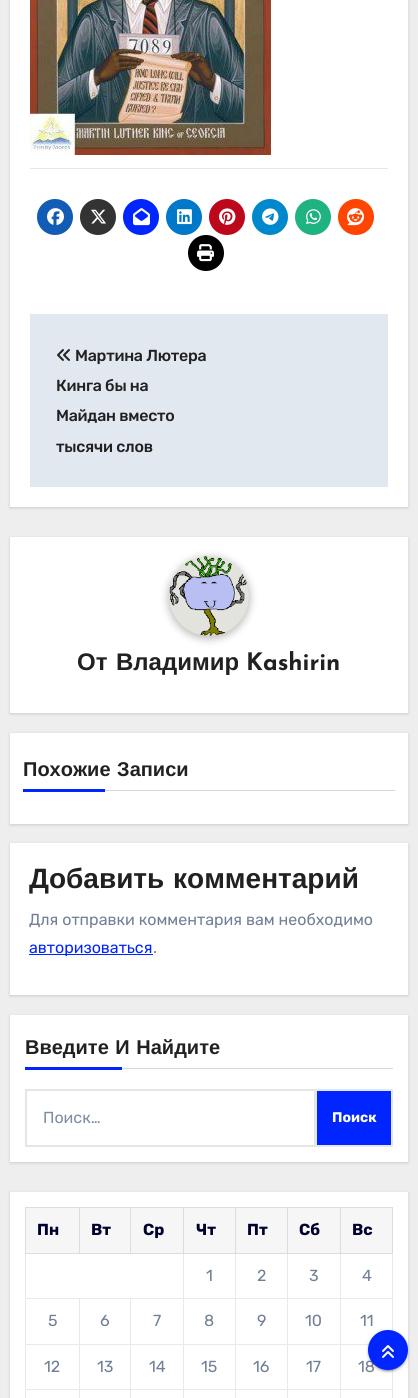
import math
import cairocffi as cairo

surface = cairo.ImageSurface(cairo.FORMAT_RGB24, 418, 1398)
ctx = cairo.Context(surface)
options = cairo.FontOptions()
options.set_hint_metrics(cairo.HINT_METRICS_OFF)
options.set_hint_style(cairo.HINT_STYLE_NONE)
ctx.set_font_options(options)
ctx.set_miter_limit(4)


def rgb(r, g, b):
    ctx.set_source_rgb(r / 255, g / 255, b / 255)


def face(family, size, italic, bold):
    ctx.select_font_face(family, cairo.FONT_SLANT_ITALIC if italic else cairo.FONT_SLANT_NORMAL, cairo.FONT_WEIGHT_BOLD if bold else cairo.FONT_WEIGHT_NORMAL)
    ctx.set_font_size(size)


def label(x, y, s):
    ctx.move_to(x, y)
    ctx.show_text(s)


def tracked(x, y, s, letter, word):
    ctx.move_to(x, y)
    for ch in s:
        ctx.show_text(ch)
        ctx.rel_move_to(letter + word * (ch == ' '), 0)


def rect(x, y, w, h):
    ctx.rectangle(x, y, w, h)
    ctx.fill()


def rrect(x, y, w, h, r):
    ctx.new_sub_path()
    for i, (u, v) in enumerate([(x + w - r, y + h - r), (x + r, y + h - r), (x + r, y + r), (x + w - r, y + r)]):
        ctx.arc(u, v, r, i * math.pi / 2, (i + 1) * math.pi / 2)
    ctx.close_path()


def soft_shadow(x, y, w, h, r, blur, alpha):
    ctx.push_group_with_content(cairo.CONTENT_ALPHA)
    ctx.set_operator(cairo.OPERATOR_SOURCE)
    for i in range(15, -16, -2):
        e = blur * i / 6
        if min(w, h) + 2 * e > 0:
            ctx.set_source_rgba(0, 0, 0, alpha * math.erfc((i - 1) / 8.5) / 2)
            rrect(x - e, y - e, w + 2 * e, h + 2 * e, max(0, min(r + e + blur * .6, min(w, h) / 2 + e)))
            ctx.fill()
    ctx.mask(ctx.pop_group())


def image(path, x, y, w, h):
    ctx.save()
    ctx.set_source_surface(cairo.ImageSurface.create_from_png(path), x, y)
    ctx.rectangle(x, y, w, h)
    ctx.fill()
    ctx.restore()


rgb(238, 238, 238)
ctx.paint()
rgb(0, 0, 0)
soft_shadow(10, -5, 398, 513, 0, 1.5, 0.15)
rgb(255, 255, 255)
rect(10, 0, 398, 507)
image('image0.png', 30, 0, 241, 155)
rgb(226, 232, 240)
rect(30, 168, 358, 1)
rgb(19, 92, 182)
ctx.arc(55, 217, 18, 0, 2 * math.pi)
ctx.fill()
image('image1.png', 47, 208, 17, 17)
rgb(51, 51, 51)
ctx.arc(98, 217, 18, 0, 2 * math.pi)
ctx.fill()
image('image2.png', 91, 209, 15, 15)
rgb(0, 37, 255)
ctx.arc(141, 217, 18, 0, 2 * math.pi)
ctx.fill()
image('image3.png', 133, 208, 17, 18)
rgb(0, 120, 202)
ctx.arc(184, 217, 18, 0, 2 * math.pi)
ctx.fill()
image('image4.png', 177, 209, 15, 16)
rgb(189, 8, 28)
ctx.arc(227, 217, 18, 0, 2 * math.pi)
ctx.fill()
image('image5.png', 219, 208, 17, 17)
rgb(0, 136, 204)
ctx.arc(270, 217, 18, 0, 2 * math.pi)
ctx.fill()
image('image6.png', 262, 208, 17, 17)
rgb(31, 179, 129)
ctx.arc(313, 217, 18, 0, 2 * math.pi)
ctx.fill()
image('image7.png', 306, 209, 15, 15)
rgb(255, 69, 0)
ctx.arc(356, 217, 18, 0, 2 * math.pi)
ctx.fill()
image('image8.png', 347, 208, 17, 18)
rgb(0, 0, 0)
ctx.arc(206, 253, 18, 0, 2 * math.pi)
ctx.fill()
image('image9.png', 197, 244, 17, 18)
rgb(226, 232, 240)
rect(30, 314, 358, 173)
image('image10.png', 57, 349, 13, 12)
face('Rubik Medium', 16, 0, 0)
rgb(33, 33, 33)
tracked(75, 361, 'Мартина Лютера', -0.25, 0)
tracked(56, 391, 'Кинга бы на', -0.25, 0)
tracked(56, 421, 'Майдан вместо', -0.25, 0)
tracked(56, 452, 'тысячи слов', -0.25, 0)
rgb(0, 0, 0)
soft_shadow(10, 538, 398, 176, 0, 1.5, 0.15)
rgb(255, 255, 255)
rect(10, 537, 398, 176)
rgb(33, 33, 33)
soft_shadow(168, 557, 82, 82, 41, 4, 0.3)
image('image11.png', 169, 556, 80, 80)
face('Liberation Sans', 24, 0, 1)
rgb(33, 33, 33)
label(77, 670, 'От')
label(116, 670, 'Владимир')
face('Josefin Sans', 24, 0, 1)
label(246, 670, 'Kashirin')
rgb(0, 0, 0)
soft_shadow(10, 734, 398, 91, 0, 1.5, 0.15)
rgb(255, 255, 255)
rect(10, 733, 398, 91)
rgb(215, 215, 215)
rect(105, 790, 290, 1)
face('Liberation Sans', 20, 0, 1)
rgb(33, 33, 33)
tracked(23, 776, 'Похожие Записи', 0, 1)
rgb(0, 37, 255)
rect(23, 789, 82, 3)
rgb(0, 0, 0)
soft_shadow(10, 844, 398, 152, 0, 1.5, 0.15)
rgb(255, 255, 255)
rect(10, 843, 398, 152)
face('Liberation Sans', 28, 0, 1)
rgb(33, 33, 33)
tracked(29, 888, 'Добавить комментарий', 0, 1)
face('Rubik Light', 16, 0, 0)
rgb(113, 128, 150)
label(29, 925, 'Для отправки комментария вам необходимо')
rgb(0, 37, 255)
rect(29, 954, 124, 1)
label(29, 953, 'авторизоваться')
rgb(113, 128, 150)
label(153, 953, '.')
rgb(0, 0, 0)
soft_shadow(10, 1016, 398, 147, 0, 1.5, 0.15)
rgb(255, 255, 255)
rect(10, 1015, 398, 147)
rgb(215, 215, 215)
rect(122, 1068, 271, 1)
face('Liberation Sans', 20, 0, 1)
rgb(33, 33, 33)
tracked(25, 1054, 'Введите И Найдите', 0, 1)
rgb(0, 37, 255)
rect(25, 1067, 97, 3)
ctx.rectangle(26, 1090, 289, 56)
rgb(229, 229, 229)
ctx.stroke()
face('Rubik Light', 16, 0, 0)
rgb(127, 141, 161)
label(43, 1123, 'Поиск…')
rgb(0, 37, 255)
ctx.rectangle(316, 1090, 76, 56)
ctx.fill_preserve()
rgb(226, 232, 240)
ctx.stroke()
face('Rubik', 14, 0, 1)
rgb(255, 255, 255)
label(332, 1122, 'Поиск')
rgb(0, 0, 0)
soft_shadow(10, 1193, 398, 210, 0, 1.5, 0.15)
rgb(255, 255, 255)
rect(10, 1192, 398, 206)
rgb(246, 246, 246)
rect(26, 1208, 53, 45)
rgb(221, 221, 221)
rect(340, 1207, 53, 1)
rgb(233, 233, 233)
rect(340, 1298, 53, 1)
rect(392, 1253, 1, 78)
rgb(221, 221, 221)
rect(392, 1207, 1, 47)
rgb(233, 233, 233)
rect(340, 1344, 29, 1)
rect(340, 1389, 53, 1)
rect(340, 1389, 1, 9)
rect(287, 1389, 54, 1)
rect(340, 1344, 1, 46)
rect(287, 1344, 54, 1)
rect(340, 1298, 1, 47)
rect(287, 1298, 54, 1)
rect(340, 1253, 1, 46)
rgb(221, 221, 221)
rect(340, 1253, 53, 1)
rect(340, 1207, 1, 47)
rect(287, 1207, 54, 1)
rgb(233, 233, 233)
rect(287, 1389, 1, 9)
rect(235, 1389, 53, 1)
rect(287, 1344, 1, 46)
rect(235, 1344, 53, 1)
rect(287, 1298, 1, 47)
rect(235, 1298, 53, 1)
rect(287, 1253, 1, 46)
rgb(221, 221, 221)
rect(287, 1253, 54, 1)
rect(287, 1207, 1, 47)
rect(235, 1207, 53, 1)
rgb(233, 233, 233)
rect(235, 1389, 1, 9)
rect(183, 1389, 53, 1)
rect(235, 1344, 1, 46)
rect(183, 1344, 53, 1)
rect(235, 1298, 1, 47)
rect(183, 1298, 53, 1)
rect(235, 1253, 1, 46)
rgb(221, 221, 221)
rect(235, 1253, 53, 1)
rect(235, 1207, 1, 47)
rect(183, 1207, 53, 1)
rgb(233, 233, 233)
rect(183, 1389, 1, 9)
rect(130, 1389, 54, 1)
rect(183, 1344, 1, 46)
rect(130, 1344, 54, 1)
rect(183, 1298, 1, 47)
rect(130, 1298, 54, 1)
rect(183, 1253, 1, 46)
rgb(221, 221, 221)
rect(183, 1253, 53, 1)
rect(183, 1207, 1, 47)
rect(130, 1207, 54, 1)
rect(130, 1253, 54, 1)
rect(130, 1207, 1, 47)
rect(79, 1207, 52, 1)
rect(79, 1253, 52, 1)
rect(79, 1207, 1, 47)
rect(25, 1207, 55, 1)
rgb(233, 233, 233)
rect(130, 1389, 1, 9)
rect(79, 1389, 52, 1)
rect(130, 1344, 1, 46)
rect(79, 1344, 52, 1)
rect(130, 1298, 1, 47)
rect(79, 1298, 52, 1)
rect(79, 1389, 1, 9)
rect(25, 1389, 55, 1)
rect(79, 1344, 1, 46)
rect(25, 1344, 55, 1)
rect(79, 1298, 1, 47)
rect(25, 1298, 55, 1)
rect(25, 1389, 1, 9)
rect(25, 1344, 1, 46)
rect(25, 1253, 1, 92)
rgb(221, 221, 221)
rect(25, 1253, 55, 1)
rect(25, 1207, 1, 47)
face('Rubik', 16, 0, 1)
rgb(1, 1, 47)
label(37, 1235, 'Пн')
rgb(246, 246, 246)
rect(80, 1208, 50, 45)
rgb(1, 1, 47)
label(91, 1235, 'Вт')
rgb(246, 246, 246)
rect(131, 1208, 52, 45)
rgb(1, 1, 47)
label(143, 1235, 'Ср')
rgb(246, 246, 246)
rect(184, 1208, 51, 45)
rgb(1, 1, 47)
label(196, 1235, 'Чт')
rgb(246, 246, 246)
rect(236, 1208, 51, 45)
rgb(1, 1, 47)
label(247, 1235, 'Пт')
rgb(246, 246, 246)
rect(288, 1208, 52, 45)
rgb(1, 1, 47)
label(299, 1235, 'Сб')
rgb(246, 246, 246)
rect(341, 1208, 51, 45)
rgb(1, 1, 47)
label(352, 1235, 'Вс')
face('Rubik Light', 16, 0, 0)
rgb(113, 128, 150)
label(206, 1281, '1')
label(257, 1281, '2')
label(309, 1281, '3')
label(362, 1281, '4')
label(48, 1326, '5')
label(100, 1326, '6')
label(153, 1326, '7')
label(204, 1326, '8')
label(257, 1326, '9')
label(305, 1326, '10')
label(360, 1326, '11')
label(44, 1372, '12')
label(97, 1372, '13')
label(149, 1372, '14')
label(201, 1372, '15')
label(253, 1372, '16')
label(306, 1372, '17')
label(358, 1372, '18')
rgb(233, 233, 233)
rect(392, 1369, 1, 29)
rgb(0, 0, 0)
soft_shadow(368, 1331, 40, 40, 20, 2.5, 0.12)
soft_shadow(370, 1335, 36, 36, 18, 0.5, 0.2)
soft_shadow(368, 1332, 40, 40, 20, 1, 0.14)
rgb(0, 37, 255)
ctx.arc(388, 1350, 19, 0, 2 * math.pi)
ctx.fill_preserve()
ctx.stroke()
image('image12.png', 382, 1345, 12, 13)
surface.write_to_png('render.png')
